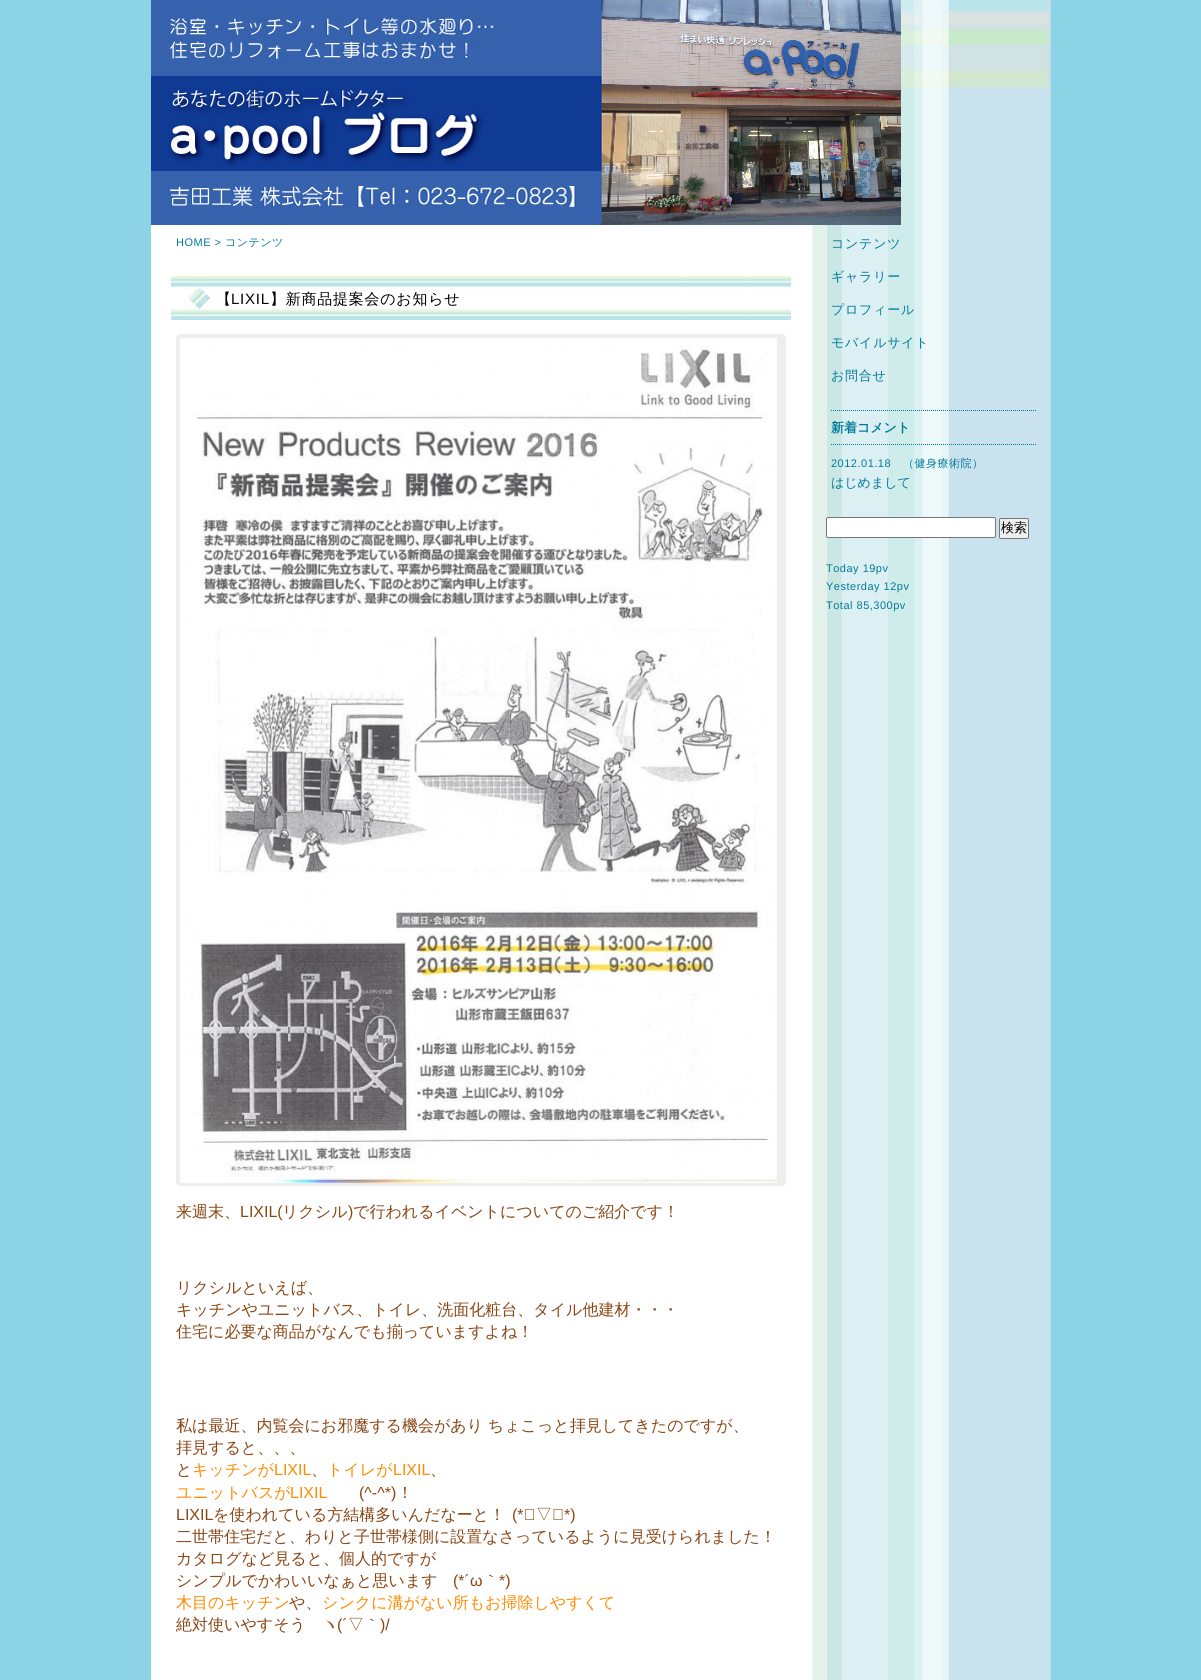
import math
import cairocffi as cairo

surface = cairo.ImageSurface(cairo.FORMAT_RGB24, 1201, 1680)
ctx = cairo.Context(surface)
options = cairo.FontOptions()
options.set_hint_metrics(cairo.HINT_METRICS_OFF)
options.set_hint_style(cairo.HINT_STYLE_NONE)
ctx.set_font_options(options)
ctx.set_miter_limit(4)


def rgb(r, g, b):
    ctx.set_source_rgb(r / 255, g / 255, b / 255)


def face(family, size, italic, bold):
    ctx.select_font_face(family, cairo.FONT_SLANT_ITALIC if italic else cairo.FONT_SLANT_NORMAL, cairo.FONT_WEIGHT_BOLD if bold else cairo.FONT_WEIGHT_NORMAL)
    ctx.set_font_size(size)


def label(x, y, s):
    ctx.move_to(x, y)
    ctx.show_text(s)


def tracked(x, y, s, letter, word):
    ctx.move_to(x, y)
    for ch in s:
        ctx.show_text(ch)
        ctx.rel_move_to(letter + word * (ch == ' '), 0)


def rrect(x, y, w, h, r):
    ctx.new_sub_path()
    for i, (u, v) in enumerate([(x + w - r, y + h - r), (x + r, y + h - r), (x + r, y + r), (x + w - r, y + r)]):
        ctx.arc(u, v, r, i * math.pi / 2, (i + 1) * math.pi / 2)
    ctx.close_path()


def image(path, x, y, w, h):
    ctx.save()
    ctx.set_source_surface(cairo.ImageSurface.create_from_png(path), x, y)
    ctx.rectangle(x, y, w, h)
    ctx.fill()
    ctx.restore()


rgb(139, 211, 229)
ctx.paint()
image('image0.png', 151, 90, 900, 1590)
image('image1.png', 901, 0, 150, 90)
image('image2.png', 151, 0, 750, 225)
face('Liberation Sans', 11, 0, 0)
rgb(1, 123, 154)
tracked(176, 246, 'HOME >', 0.5, 0)
face('WenQuanYi Zen Hei Medium', 11, 0, 0)
tracked(225, 246, 'コンテンツ', 0.5, 0)
image('image3.png', 171, 275, 620, 45)
face('WenQuanYi Zen Hei Medium', 15, 0, 0)
rgb(0, 0, 0)
tracked(216, 304, '【', 0.75, 0)
face('Liberation Sans', 15, 0, 0)
tracked(231, 304, 'LIXIL', 0.75, 0)
face('WenQuanYi Zen Hei Medium', 15, 0, 0)
tracked(270, 304, '】新商品提案会のお知らせ', 0.75, 0)
rgb(238, 238, 238)
rrect(177.5, 335.5, 607, 849, 2.5)
ctx.fill_preserve()
ctx.set_line_width(3)
ctx.stroke()
image('image4.png', 180, 338, 597, 846)
face('WenQuanYi Zen Hei Medium', 16, 0, 0)
rgb(139, 69, 19)
label(176, 1217, '来週末、')
face('Liberation Sans', 16, 0, 0)
label(240, 1217, 'LIXIL(')
face('WenQuanYi Zen Hei Medium', 16, 0, 0)
label(282, 1217, 'リクシル')
face('Liberation Sans', 16, 0, 0)
label(348, 1217, ')')
face('WenQuanYi Zen Hei Medium', 16, 0, 0)
label(353, 1217, 'で行われるイベントについてのご紹介です！')
label(176, 1293, 'リクシルといえば、')
label(176, 1315, 'キッチンやユニットバス、トイレ、洗面化粧台、タイル他建材・・・')
label(176, 1337, '住宅に必要な商品がなんでも揃っていますよね！')
label(176, 1431, '私は最近、内覧会にお邪魔する機会があり ちょこっと拝見してきたのですが、')
label(176, 1453, '拝見すると、、、')
label(176, 1475, 'と')
rgb(255, 140, 0)
label(192, 1475, 'キッチンが')
face('Liberation Sans', 16, 0, 0)
label(274, 1475, 'LIXIL')
face('WenQuanYi Zen Hei Medium', 16, 0, 0)
rgb(139, 69, 19)
label(311, 1475, '、')
rgb(255, 140, 0)
label(327, 1475, 'トイレが')
face('Liberation Sans', 16, 0, 0)
label(393, 1475, 'LIXIL')
face('WenQuanYi Zen Hei Medium', 16, 0, 0)
rgb(139, 69, 19)
label(430, 1475, '、')
rgb(255, 140, 0)
label(176, 1498, 'ユニットバスが')
face('Liberation Sans', 16, 0, 0)
label(290, 1498, 'LIXIL')
rgb(139, 69, 19)
label(359, 1498, '(^-^*)')
face('WenQuanYi Zen Hei Medium', 16, 0, 0)
label(397, 1498, '！')
face('Liberation Sans', 16, 0, 0)
label(176, 1520, 'LIXIL')
face('WenQuanYi Zen Hei Medium', 16, 0, 0)
label(213, 1520, 'を使われている方結構多いんだなーと！')
face('Liberation Sans', 16, 0, 0)
label(512, 1520, '(*ﾟ')
face('WenQuanYi Zen Hei Medium', 16, 0, 0)
label(536, 1520, '▽')
face('Liberation Sans', 16, 0, 0)
label(552, 1520, 'ﾟ*)')
face('WenQuanYi Zen Hei Medium', 16, 0, 0)
label(176, 1542, '二世帯住宅だと、わりと子世帯様側に設置なさっているように見受けられました！')
label(176, 1564, 'カタログなど見ると、個人的ですが')
label(176, 1586, 'シンプルでかわいいなぁと思います')
face('Liberation Sans', 16, 0, 0)
label(453, 1586, '(*´ω')
face('WenQuanYi Zen Hei Medium', 16, 0, 0)
label(483, 1586, '｀')
face('Liberation Sans', 16, 0, 0)
label(499, 1586, '*)')
face('WenQuanYi Zen Hei Medium', 16, 0, 0)
rgb(255, 140, 0)
label(176, 1608, '木目のキッチン')
rgb(139, 69, 19)
label(289, 1608, 'や、')
rgb(255, 140, 0)
label(322, 1608, 'シンクに溝がない所もお掃除しやすくて')
rgb(139, 69, 19)
label(176, 1630, '絶対使いやすそう　ヽ')
face('Liberation Sans', 16, 0, 0)
label(337, 1630, '(´')
face('WenQuanYi Zen Hei Medium', 16, 0, 0)
label(348, 1630, '▽｀')
face('Liberation Sans', 16, 0, 0)
label(380, 1630, ')/')
face('WenQuanYi Zen Hei Medium', 13, 0, 0)
rgb(1, 123, 154)
tracked(831, 248, 'コンテンツ', 0.75, 0)
tracked(831, 281, 'ギャラリー', 0.75, 0)
tracked(831, 314, 'プロフィール', 0.75, 0)
tracked(831, 347, 'モバイルサイト', 0.75, 0)
tracked(831, 380, 'お問合せ', 0.75, 0)
ctx.new_path()
ctx.move_to(831, 410.5)
ctx.line_to(1036, 410.5)
ctx.set_line_width(1)
ctx.set_dash([1, 1])
ctx.stroke()
ctx.new_path()
ctx.move_to(831, 444.5)
ctx.line_to(1036, 444.5)
ctx.stroke()
face('WenQuanYi Zen Hei', 13, 0, 1)
label(831, 432, '新着コメント')
face('Liberation Sans', 11, 0, 0)
tracked(831, 467, '2012.01.18', 0.5, 0)
face('WenQuanYi Zen Hei Medium', 11, 0, 0)
tracked(903, 467, '（健身療術院）', 0.5, 0)
face('WenQuanYi Zen Hei Medium', 13, 0, 0)
label(831, 487, 'はじめまして')
rgb(255, 255, 255)
rrect(826.5, 517.5, 169, 20, 1.5)
ctx.fill_preserve()
rgb(118, 118, 118)
ctx.set_dash([])
ctx.stroke()
rgb(239, 239, 239)
rrect(999.5, 518.5, 29, 20, 1.5)
ctx.fill_preserve()
rgb(118, 118, 118)
ctx.stroke()
rgb(0, 0, 0)
label(1001, 532, '検索')
face('Liberation Sans', 11, 0, 0)
rgb(1, 123, 154)
tracked(826, 572, 'Today 19pv', 0.5, 0)
tracked(826, 590, 'Yesterday 12pv', 0.5, 0)
tracked(826, 609, 'Total 85,300pv', 0.5, 0)
surface.write_to_png('render.png')
